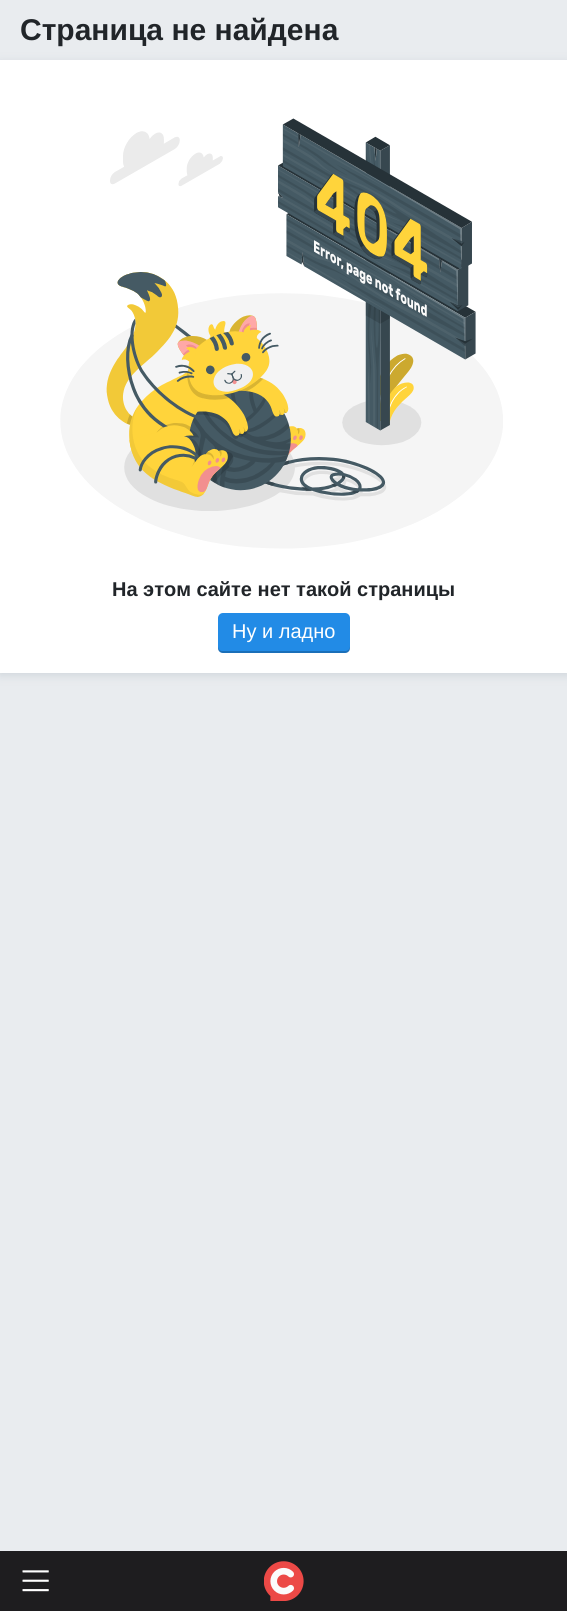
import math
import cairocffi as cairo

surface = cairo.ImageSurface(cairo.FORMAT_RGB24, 567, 1611)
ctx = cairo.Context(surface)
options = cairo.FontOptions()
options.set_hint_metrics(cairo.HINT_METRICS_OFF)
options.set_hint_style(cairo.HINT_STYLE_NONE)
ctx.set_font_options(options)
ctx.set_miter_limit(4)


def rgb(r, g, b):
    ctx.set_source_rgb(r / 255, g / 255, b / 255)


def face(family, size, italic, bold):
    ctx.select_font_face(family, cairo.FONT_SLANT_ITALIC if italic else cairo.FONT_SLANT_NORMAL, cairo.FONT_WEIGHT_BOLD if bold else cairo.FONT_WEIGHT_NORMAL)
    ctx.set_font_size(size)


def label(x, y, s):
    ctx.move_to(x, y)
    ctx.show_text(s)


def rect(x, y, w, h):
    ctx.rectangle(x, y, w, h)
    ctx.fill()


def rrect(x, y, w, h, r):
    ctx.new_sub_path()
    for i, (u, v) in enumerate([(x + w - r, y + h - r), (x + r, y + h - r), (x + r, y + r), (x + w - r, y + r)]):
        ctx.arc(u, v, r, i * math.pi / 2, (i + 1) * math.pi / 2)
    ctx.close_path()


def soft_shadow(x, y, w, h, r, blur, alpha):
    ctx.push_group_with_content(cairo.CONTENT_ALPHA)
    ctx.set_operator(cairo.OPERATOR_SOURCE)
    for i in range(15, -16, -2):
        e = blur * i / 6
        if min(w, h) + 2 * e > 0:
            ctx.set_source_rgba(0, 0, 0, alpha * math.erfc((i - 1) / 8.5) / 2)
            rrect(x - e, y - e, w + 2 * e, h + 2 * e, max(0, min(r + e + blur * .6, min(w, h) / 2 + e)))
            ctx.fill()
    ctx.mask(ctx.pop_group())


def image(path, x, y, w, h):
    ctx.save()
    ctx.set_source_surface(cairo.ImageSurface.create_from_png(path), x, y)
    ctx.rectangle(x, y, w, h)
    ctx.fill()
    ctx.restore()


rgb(233, 236, 239)
ctx.paint()
face('Liberation Sans', 30, 0, 1)
rgb(33, 37, 41)
label(20, 40, 'Страница не найдена')
rgb(206, 212, 218)
soft_shadow(0, 63, 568, 612, 0, 5, 1)
rgb(255, 255, 255)
rect(0, 60, 567, 613)
image('image0.png', 60, 118, 443, 431)
face('Liberation Sans', 20, 0, 1)
rgb(33, 37, 41)
label(112, 596, 'На этом сайте нет такой страницы')
rgb(34, 139, 230)
rrect(218, 613, 132, 40, 5)
ctx.fill()
ctx.set_source_rgba(0, 0, 0, 0.2)
ctx.new_path()
ctx.move_to(218, 646)
ctx.line_to(218, 648)
ctx.curve_to(218, 651, 220, 653, 223, 653)
ctx.line_to(345, 653)
ctx.curve_to(348, 653, 350, 651, 350, 648)
ctx.line_to(350, 646)
ctx.curve_to(350, 649, 348, 651, 345, 651)
ctx.line_to(222, 651)
ctx.curve_to(220, 651, 218, 649, 218, 646)
ctx.close_path()
ctx.fill()
face('Liberation Sans', 20, 0, 0)
rgb(255, 255, 255)
label(232, 638, 'Ну и ладно')
rgb(30, 29, 31)
rect(0, 1551, 567, 60)
image('image1.png', 22, 1570, 27, 22)
image('image2.png', 264, 1561, 40, 40)
surface.write_to_png('render.png')
